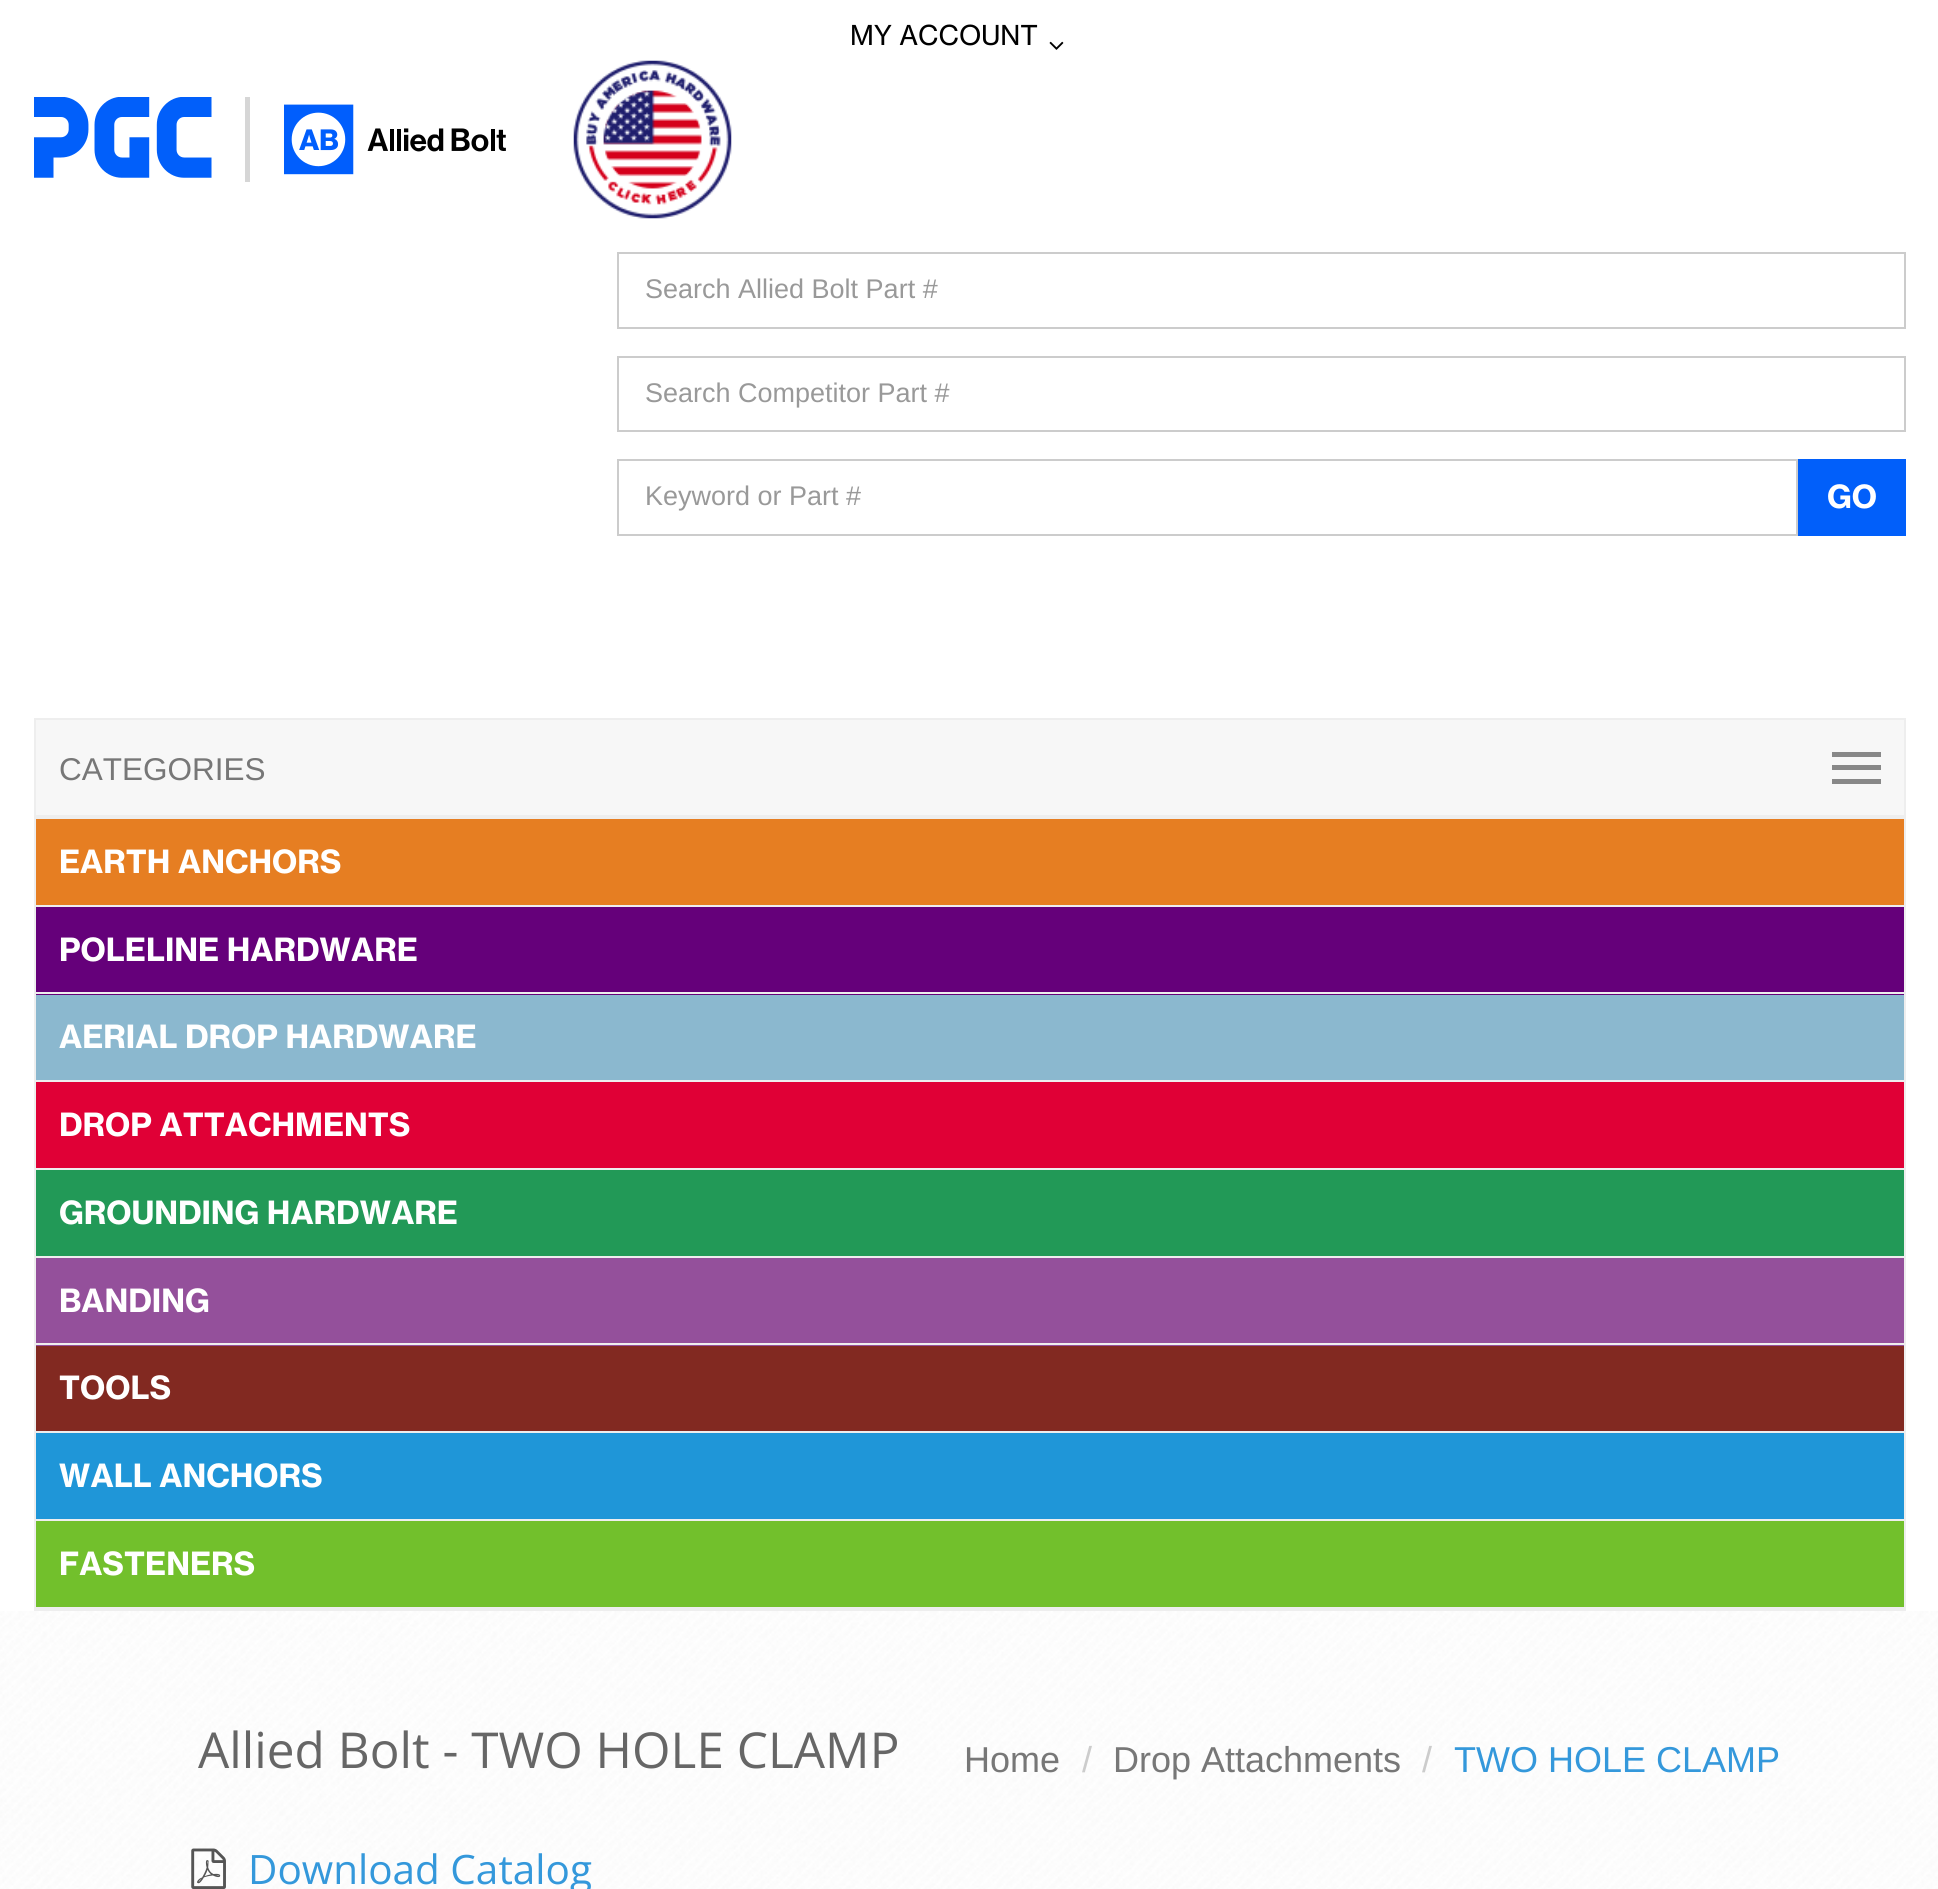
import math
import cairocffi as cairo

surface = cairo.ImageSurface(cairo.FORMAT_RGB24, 1938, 1889)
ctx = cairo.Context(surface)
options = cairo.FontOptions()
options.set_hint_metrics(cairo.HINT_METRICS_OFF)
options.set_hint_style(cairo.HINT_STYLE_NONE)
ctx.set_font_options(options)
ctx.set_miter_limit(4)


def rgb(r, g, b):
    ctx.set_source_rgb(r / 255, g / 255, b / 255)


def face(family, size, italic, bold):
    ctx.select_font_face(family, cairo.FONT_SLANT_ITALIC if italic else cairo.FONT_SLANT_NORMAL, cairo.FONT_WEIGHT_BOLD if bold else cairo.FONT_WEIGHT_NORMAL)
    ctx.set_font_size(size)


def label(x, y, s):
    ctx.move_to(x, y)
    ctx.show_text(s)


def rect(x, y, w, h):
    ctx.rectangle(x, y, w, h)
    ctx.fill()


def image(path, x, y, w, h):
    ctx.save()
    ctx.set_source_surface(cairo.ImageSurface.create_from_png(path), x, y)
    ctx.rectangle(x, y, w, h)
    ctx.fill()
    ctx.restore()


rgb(255, 255, 255)
ctx.paint()
face('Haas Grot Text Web', 27, 0, 0)
rgb(0, 0, 0)
label(850, 45, 'MY ACCOUNT')
image('image0.png', 1049, 41, 15, 9)
image('image1.png', 34, 97, 178, 81)
rgb(214, 214, 214)
rect(245, 97, 5, 85)
image('image2.png', 284, 104, 222, 71)
image('image3.png', 573, 60, 159, 159)
ctx.rectangle(618, 253, 1287, 75)
rgb(204, 204, 204)
ctx.stroke()
face('Liberation Sans', 27, 0, 0)
rgb(153, 153, 153)
label(645, 298, 'Search Allied Bolt Part #')
ctx.rectangle(618, 357, 1287, 74)
rgb(204, 204, 204)
ctx.stroke()
rgb(153, 153, 153)
label(645, 402, 'Search Competitor Part #')
ctx.rectangle(618, 460, 1179, 75)
rgb(204, 204, 204)
ctx.stroke()
rgb(153, 153, 153)
label(645, 505, 'Keyword or Part #')
rgb(1, 95, 250)
rect(1798, 459, 108, 77)
face('Haas Grot Text Web', 31.5, 0, 1)
rgb(255, 255, 255)
label(1827, 508, 'GO')
rgb(247, 247, 247)
ctx.rectangle(35, 719, 1870, 97)
ctx.fill_preserve()
rgb(238, 238, 238)
ctx.stroke()
face('Liberation Sans', 31.5, 0, 0)
rgb(119, 119, 119)
label(59, 780, 'CATEGORIES')
rgb(136, 136, 136)
rect(1832, 752, 49, 5)
rect(1832, 765, 49, 5)
rect(1832, 779, 49, 5)
ctx.rectangle(35, 818, 1870, 792)
rgb(238, 238, 238)
ctx.stroke()
rgb(230, 126, 34)
rect(36, 819, 1868, 86)
rgb(238, 238, 238)
rect(36, 905, 1868, 2)
face('Haas Grot Text Web', 31.5, 0, 1)
rgb(255, 255, 255)
label(59, 873, 'EARTH ANCHORS')
rgb(101, 0, 122)
rect(36, 907, 1868, 88)
rgb(238, 238, 238)
rect(36, 992, 1868, 2)
rgb(255, 255, 255)
label(59, 961, 'POLELINE HARDWARE')
rgb(139, 184, 207)
rect(36, 995, 1868, 85)
rgb(238, 238, 238)
rect(36, 1080, 1868, 2)
rgb(255, 255, 255)
label(59, 1048, 'AERIAL DROP HARDWARE')
rgb(224, 0, 54)
rect(36, 1082, 1868, 86)
rgb(238, 238, 238)
rect(36, 1168, 1868, 2)
rgb(255, 255, 255)
label(59, 1136, 'DROP ATTACHMENTS')
rgb(34, 153, 87)
rect(36, 1170, 1868, 86)
rgb(238, 238, 238)
rect(36, 1256, 1868, 2)
rgb(255, 255, 255)
label(59, 1224, 'GROUNDING HARDWARE')
rgb(148, 80, 155)
rect(36, 1258, 1868, 88)
rgb(238, 238, 238)
rect(36, 1343, 1868, 2)
rgb(255, 255, 255)
label(59, 1312, 'BANDING')
rgb(130, 41, 33)
rect(36, 1346, 1868, 85)
rgb(238, 238, 238)
rect(36, 1431, 1868, 2)
rgb(255, 255, 255)
label(59, 1399, 'TOOLS')
rgb(31, 150, 216)
rect(36, 1433, 1868, 86)
rgb(238, 238, 238)
rect(36, 1519, 1868, 2)
rgb(255, 255, 255)
label(59, 1487, 'WALL ANCHORS')
rgb(114, 192, 44)
rect(36, 1521, 1868, 86)
rgb(238, 238, 238)
rect(36, 1607, 1868, 2)
rgb(255, 255, 255)
label(59, 1575, 'FASTENERS')
image('image4.png', 0, 1611, 1938, 278)
face('Open Sans', 49.5, 0, 0)
rgb(102, 102, 102)
label(198, 1768, 'Allied Bolt - TWO HOLE CLAMP')
face('Liberation Sans', 36, 0, 0)
rgb(119, 119, 119)
label(964, 1772, 'Home')
rgb(204, 204, 204)
label(1082, 1772, '/')
rgb(119, 119, 119)
label(1113, 1772, 'Drop Attachments')
rgb(204, 204, 204)
label(1422, 1772, '/')
rgb(52, 152, 219)
label(1454, 1772, 'TWO HOLE CLAMP')
image('image5.png', 191, 1848, 35, 41)
face('Open Sans', 40.5, 0, 0)
label(248, 1884, 'Download Catalog')
surface.write_to_png('render.png')
